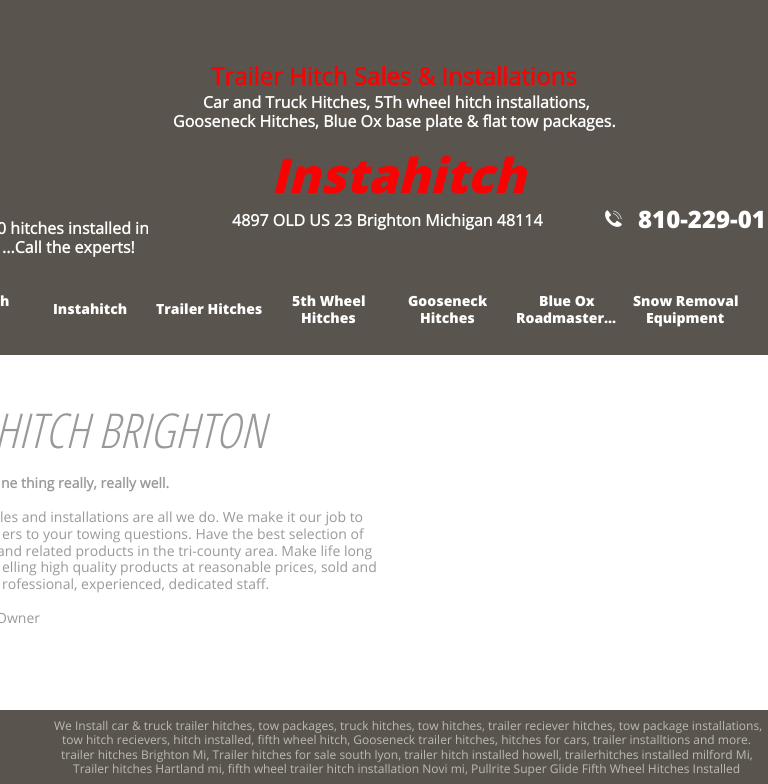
import math
import cairocffi as cairo

surface = cairo.ImageSurface(cairo.FORMAT_RGB24, 768, 784)
ctx = cairo.Context(surface)
options = cairo.FontOptions()
options.set_hint_metrics(cairo.HINT_METRICS_OFF)
options.set_hint_style(cairo.HINT_STYLE_NONE)
ctx.set_font_options(options)
ctx.set_miter_limit(4)


def rgb(r, g, b):
    ctx.set_source_rgb(r / 255, g / 255, b / 255)


def face(family, size, italic, bold):
    ctx.select_font_face(family, cairo.FONT_SLANT_ITALIC if italic else cairo.FONT_SLANT_NORMAL, cairo.FONT_WEIGHT_BOLD if bold else cairo.FONT_WEIGHT_NORMAL)
    ctx.set_font_size(size)


def label(x, y, s):
    ctx.move_to(x, y)
    ctx.show_text(s)


def rect(x, y, w, h):
    ctx.rectangle(x, y, w, h)
    ctx.fill()


def image(path, x, y, w, h):
    ctx.save()
    ctx.set_source_surface(cairo.ImageSurface.create_from_png(path), x, y)
    ctx.rectangle(x, y, w, h)
    ctx.fill()
    ctx.restore()


rgb(89, 85, 78)
ctx.paint()
face('Open Sans', 24, 0, 1)
rgb(248, 3, 3)
label(211, 85, 'Trailer Hitch Sales & Installations')
face('Open Sans', 16, 0, 1)
rgb(255, 255, 255)
label(203, 108, 'Car and Truck Hitches, 5Th wheel hitch installations,')
label(173, 127, 'Gooseneck Hitches, Blue Ox base plate & flat tow packages.')
face('Open Sans ExtraBold', 48, 1, 0)
rgb(248, 3, 3)
label(271, 193, 'Instahitch')
face('Open Sans', 16, 0, 1)
rgb(255, 255, 255)
label(-3, 234, '0 hitches installed in')
label(2, 253, '...Call the experts!')
label(232, 226, '4897 OLD US 23 Brighton Michigan 48114')
image('image0.png', 605, 210, 17, 17)
face('Open Sans ExtraBold', 24, 0, 0)
label(638, 228, '810-229-01')
face('Open Sans ExtraBold', 14, 0, 0)
label(0, 306, 'h')
label(53, 314, 'Instahitch')
label(156, 314, 'Trailer Hitches')
label(292, 306, '5th Wheel')
label(301, 323, 'Hitches')
label(408, 306, 'Gooseneck')
label(420, 323, 'Hitches')
label(539, 306, 'Blue Ox')
label(516, 323, 'Roadmaster...')
label(633, 306, 'Snow Removal')
label(646, 323, 'Equipment')
rect(0, 355, 768, 355)
face('Open Sans Light', 48, 1, 0)
rgb(153, 153, 153)
label(-6, 448, 'HITCH BRIGHTON')
face('Open Sans', 14, 0, 1)
label(1, 488, 'ne thing really, really well.')
face('Open Sans', 14, 0, 0)
label(0, 522, 'les and installations are all we do. We make it our job to')
label(2, 539, 'ers to your towing questions. Have the best selection of')
label(-3, 556, 'and related products in the tri-county area. Make life long')
label(2, 572, 'elling high quality products at reasonable prices, sold and')
label(2, 589, 'rofessional, experienced, dedicated staff.')
label(-4, 623, 'Owner')
face('Open Sans', 12, 0, 0)
rgb(188, 185, 179)
label(54, 730, 'We Install car & truck trailer hitches, tow packages, truck hitches, tow hitches, trailer reciever hitches, tow package installations,')
label(62, 744, 'tow hitch recievers, hitch installed, fifth wheel hitch, Gooseneck trailer hitches, hitches for cars, trailer installtions and more.')
label(61, 759, 'trailer hitches Brighton Mi, Trailer hitches for sale south lyon, trailer hitch installed howell, trailerhitches installed milford Mi,')
label(73, 773, 'Trailer hitches Hartland mi, fifth wheel trailer hitch installation Novi mi, Pullrite Super Glide Fifth Wheel Hitches Installed')
surface.write_to_png('render.png')
